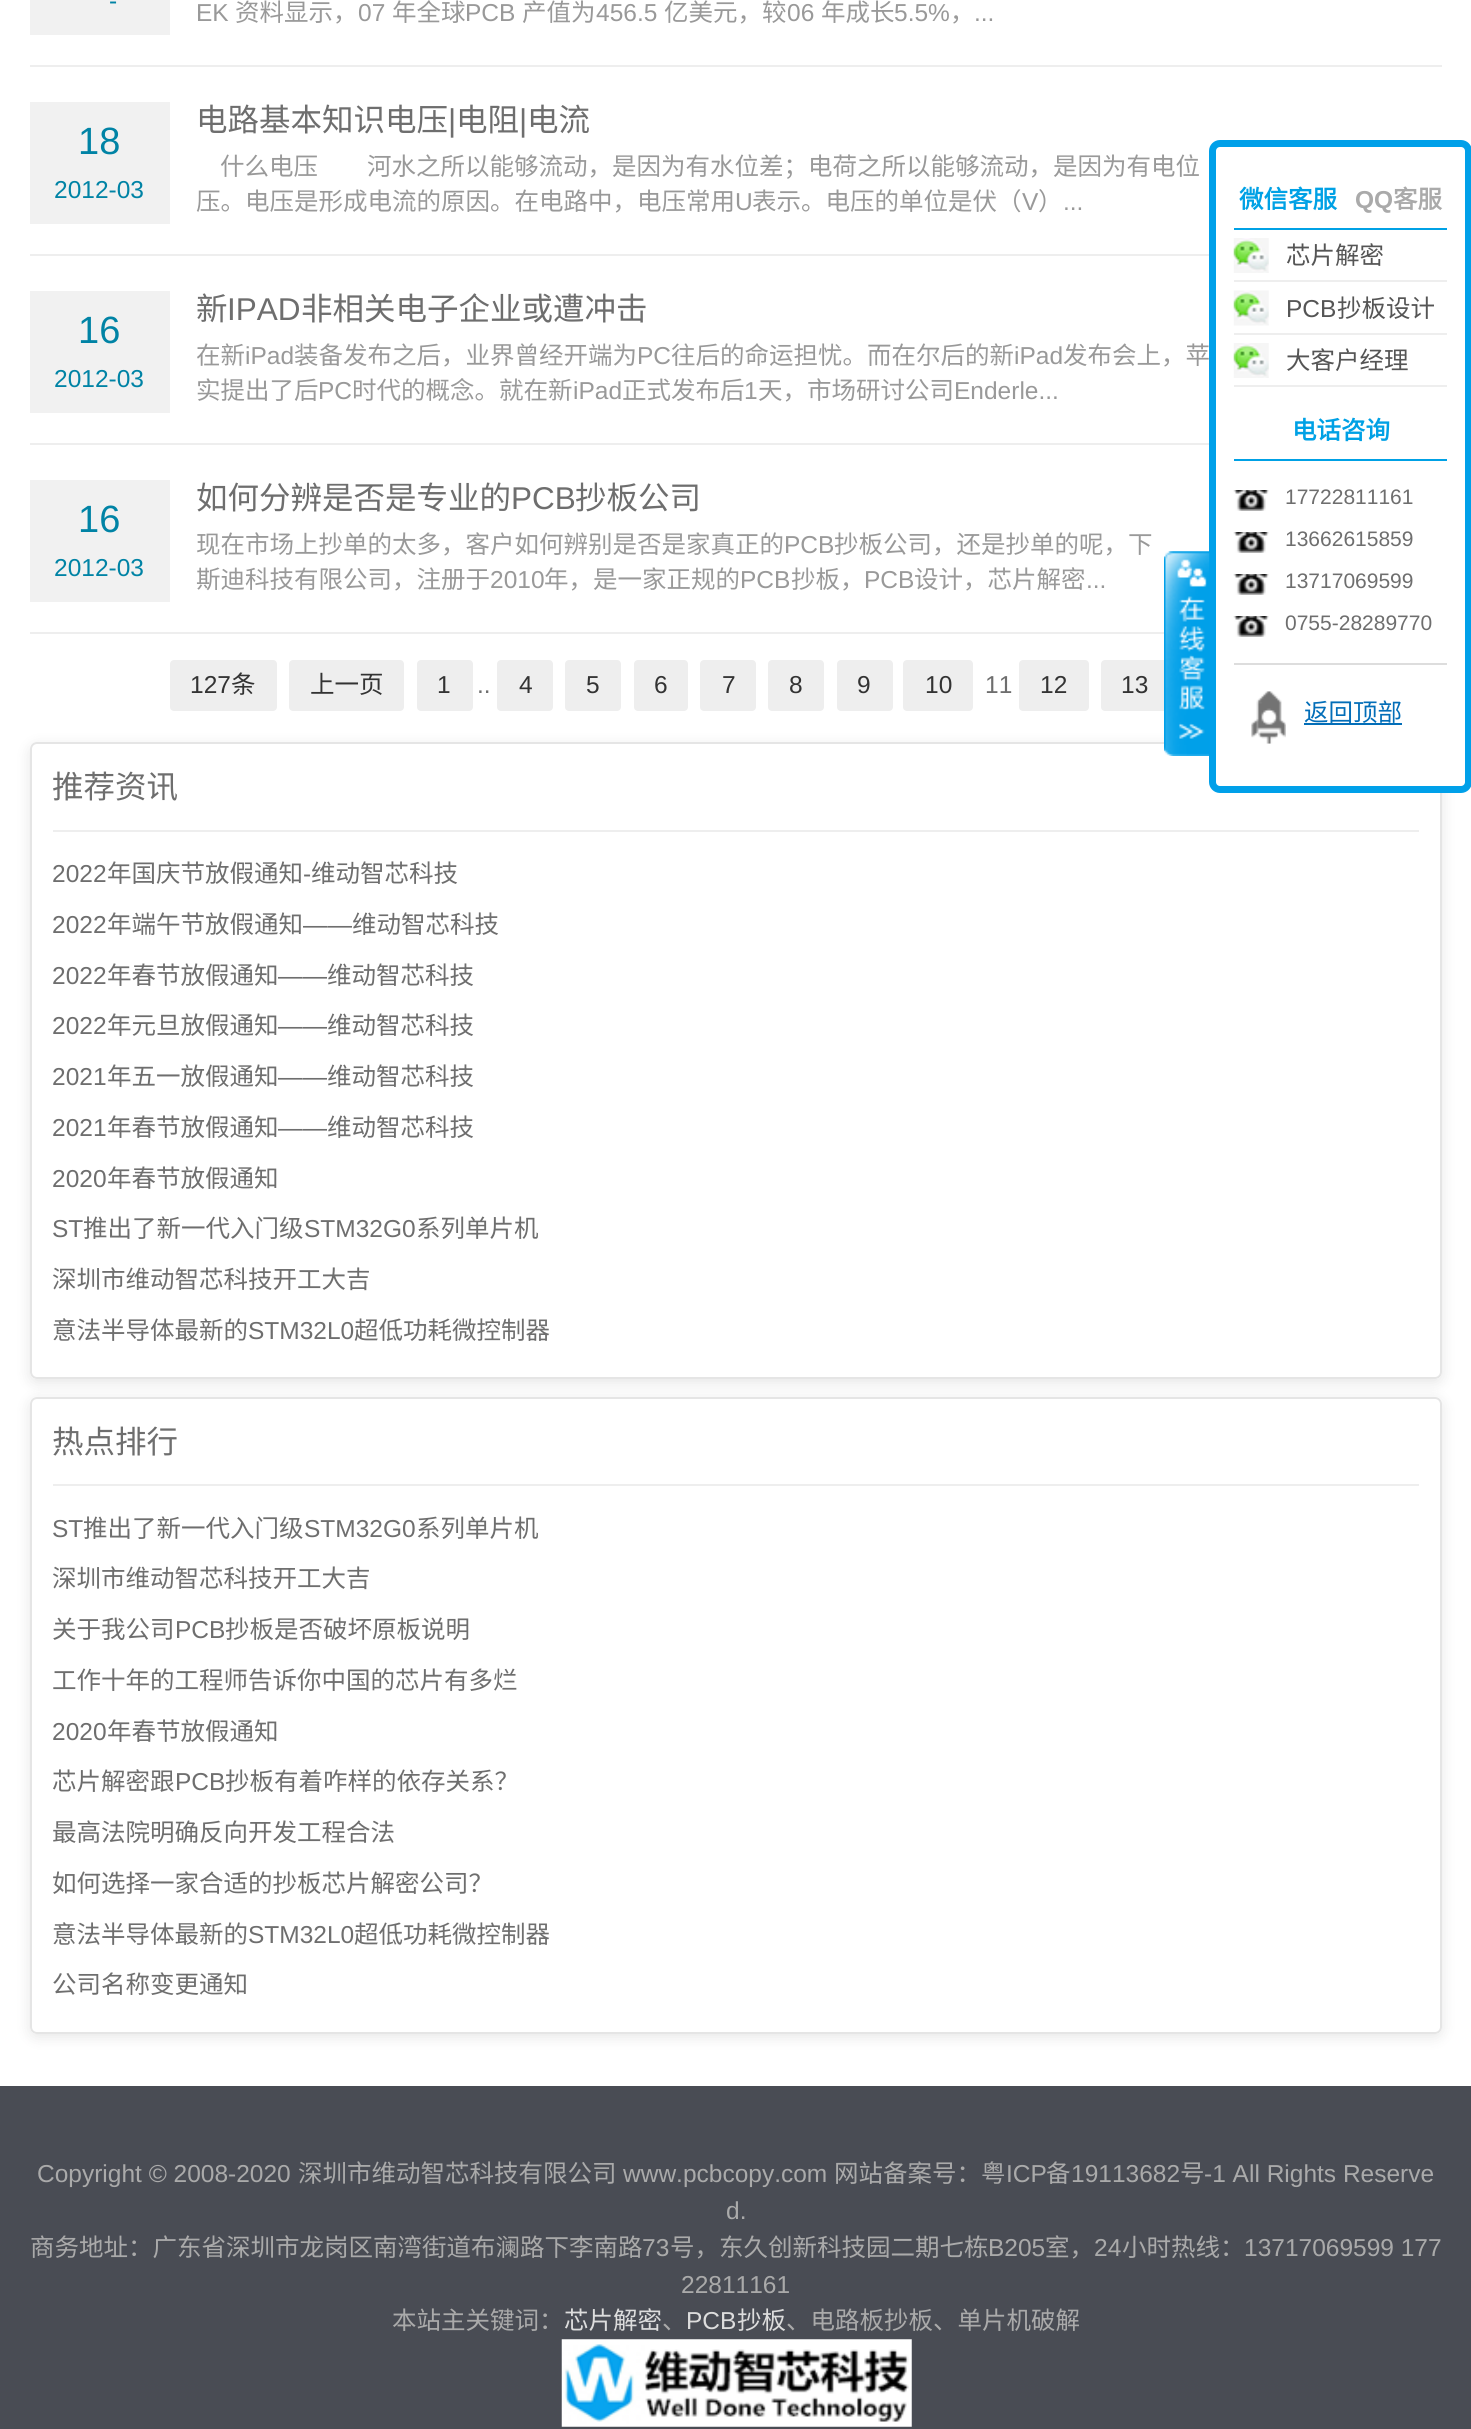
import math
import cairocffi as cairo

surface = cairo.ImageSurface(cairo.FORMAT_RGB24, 1471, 2429)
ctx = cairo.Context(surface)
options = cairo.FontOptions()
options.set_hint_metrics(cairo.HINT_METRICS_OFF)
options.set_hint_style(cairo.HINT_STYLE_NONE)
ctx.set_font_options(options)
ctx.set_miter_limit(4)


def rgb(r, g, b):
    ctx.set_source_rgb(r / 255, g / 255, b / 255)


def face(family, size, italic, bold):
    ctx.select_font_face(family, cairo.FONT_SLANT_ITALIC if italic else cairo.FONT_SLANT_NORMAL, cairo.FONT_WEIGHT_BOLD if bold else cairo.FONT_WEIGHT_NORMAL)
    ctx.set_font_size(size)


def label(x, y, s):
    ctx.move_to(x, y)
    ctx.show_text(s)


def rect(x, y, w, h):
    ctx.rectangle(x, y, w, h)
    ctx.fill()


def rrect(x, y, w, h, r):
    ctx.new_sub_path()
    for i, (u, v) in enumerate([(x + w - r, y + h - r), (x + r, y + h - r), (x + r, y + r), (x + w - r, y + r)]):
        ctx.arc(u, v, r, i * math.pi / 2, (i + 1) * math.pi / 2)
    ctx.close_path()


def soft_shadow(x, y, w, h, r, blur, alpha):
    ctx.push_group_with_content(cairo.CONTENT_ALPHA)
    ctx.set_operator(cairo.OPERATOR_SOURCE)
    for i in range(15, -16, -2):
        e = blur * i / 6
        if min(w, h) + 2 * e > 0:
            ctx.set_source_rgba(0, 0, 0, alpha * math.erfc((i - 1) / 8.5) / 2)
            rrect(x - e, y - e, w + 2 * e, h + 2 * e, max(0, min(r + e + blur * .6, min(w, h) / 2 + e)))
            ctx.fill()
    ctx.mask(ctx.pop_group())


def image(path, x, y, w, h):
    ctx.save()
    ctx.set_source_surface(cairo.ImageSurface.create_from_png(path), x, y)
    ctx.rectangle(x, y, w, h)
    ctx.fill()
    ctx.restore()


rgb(255, 255, 255)
ctx.paint()
rgb(238, 238, 238)
rect(30, 65, 1412, 2)
rgb(241, 241, 241)
rect(30, 0, 140, 35)
face('Liberation Sans', 24.5, 0, 0)
rgb(0, 131, 165)
label(109, 9, '-')
rgb(153, 153, 153)
label(196, 21, 'EK')
face('Noto Sans CJK SC', 24.5, 0, 0)
label(235, 21, '资料显示，')
face('Liberation Sans', 24.5, 0, 0)
label(358, 21, '07')
face('Noto Sans CJK SC', 24.5, 0, 0)
label(392, 21, '年全球')
face('Liberation Sans', 24.5, 0, 0)
label(465, 21, 'PCB')
face('Noto Sans CJK SC', 24.5, 0, 0)
label(522, 21, '产值为')
face('Liberation Sans', 24.5, 0, 0)
label(596, 21, '456.5')
face('Noto Sans CJK SC', 24.5, 0, 0)
label(664, 21, '亿美元，较')
face('Liberation Sans', 24.5, 0, 0)
label(787, 21, '06')
face('Noto Sans CJK SC', 24.5, 0, 0)
label(821, 21, '年成长')
face('Liberation Sans', 24.5, 0, 0)
label(894, 21, '5.5%')
face('Noto Sans CJK SC', 24.5, 0, 0)
label(950, 21, '，')
face('Liberation Sans', 24.5, 0, 0)
label(974, 21, '...')
rgb(238, 238, 238)
rect(30, 254, 1179, 2)
face('Noto Sans CJK SC', 31.5, 0, 0)
rgb(110, 110, 110)
label(196, 131, '电路基本知识电压')
face('Liberation Sans', 31.5, 0, 0)
label(448, 131, '|')
face('Noto Sans CJK SC', 31.5, 0, 0)
label(456, 131, '电阻')
face('Liberation Sans', 31.5, 0, 0)
label(519, 131, '|')
face('Noto Sans CJK SC', 31.5, 0, 0)
label(527, 131, '电流')
rgb(241, 241, 241)
rect(30, 102, 140, 122)
face('Liberation Sans', 38, 0, 0)
rgb(0, 131, 165)
label(78, 154, '18')
face('Liberation Sans', 24.5, 0, 0)
label(54, 198, '2012-03')
face('Noto Sans CJK SC', 24.5, 0, 0)
rgb(153, 153, 153)
label(220, 175, '什么电压　　河水之所以能够流动，是因为有水位差；电荷之所以能够流动，是因为有电位')
label(196, 210, '压。电压是形成电流的原因。在电路中，电压常用')
face('Liberation Sans', 24.5, 0, 0)
label(735, 210, 'U')
face('Noto Sans CJK SC', 24.5, 0, 0)
label(752, 210, '表示。电压的单位是伏（')
face('Liberation Sans', 24.5, 0, 0)
label(1022, 210, 'V')
face('Noto Sans CJK SC', 24.5, 0, 0)
label(1038, 210, '）')
face('Liberation Sans', 24.5, 0, 0)
label(1063, 210, '...')
rgb(238, 238, 238)
rect(30, 443, 1179, 2)
face('Noto Sans CJK SC', 31.5, 0, 0)
rgb(110, 110, 110)
label(196, 320, '新')
face('Liberation Sans', 31.5, 0, 0)
label(227, 320, 'IPAD')
face('Noto Sans CJK SC', 31.5, 0, 0)
label(301, 320, '非相关电子企业或遭冲击')
rgb(241, 241, 241)
rect(30, 291, 140, 122)
face('Liberation Sans', 38, 0, 0)
rgb(0, 131, 165)
label(78, 343, '16')
face('Liberation Sans', 24.5, 0, 0)
label(54, 387, '2012-03')
face('Noto Sans CJK SC', 24.5, 0, 0)
rgb(153, 153, 153)
label(196, 364, '在新')
face('Liberation Sans', 24.5, 0, 0)
label(245, 364, 'iPad')
face('Noto Sans CJK SC', 24.5, 0, 0)
label(294, 364, '装备发布之后，业界曾经开端为')
face('Liberation Sans', 24.5, 0, 0)
label(637, 364, 'PC')
face('Noto Sans CJK SC', 24.5, 0, 0)
label(671, 364, '往后的命运担忧。而在尔后的新')
face('Liberation Sans', 24.5, 0, 0)
label(1014, 364, 'iPad')
face('Noto Sans CJK SC', 24.5, 0, 0)
label(1063, 364, '发布会上，苹')
label(196, 399, '实提出了后')
face('Liberation Sans', 24.5, 0, 0)
label(318, 399, 'PC')
face('Noto Sans CJK SC', 24.5, 0, 0)
label(352, 399, '时代的概念。就在新')
face('Liberation Sans', 24.5, 0, 0)
label(573, 399, 'iPad')
face('Noto Sans CJK SC', 24.5, 0, 0)
label(622, 399, '正式发布后')
face('Liberation Sans', 24.5, 0, 0)
label(744, 399, '1')
face('Noto Sans CJK SC', 24.5, 0, 0)
label(758, 399, '天，市场研讨公司')
face('Liberation Sans', 24.5, 0, 0)
label(954, 399, 'Enderle...')
rgb(238, 238, 238)
rect(30, 632, 1134, 2)
face('Noto Sans CJK SC', 31.5, 0, 0)
rgb(110, 110, 110)
label(196, 509, '如何分辨是否是专业的')
face('Liberation Sans', 31.5, 0, 0)
label(511, 509, 'PCB')
face('Noto Sans CJK SC', 31.5, 0, 0)
label(575, 509, '抄板公司')
rgb(241, 241, 241)
rect(30, 480, 140, 122)
face('Liberation Sans', 38, 0, 0)
rgb(0, 131, 165)
label(78, 532, '16')
face('Liberation Sans', 24.5, 0, 0)
label(54, 576, '2012-03')
face('Noto Sans CJK SC', 24.5, 0, 0)
rgb(153, 153, 153)
label(196, 553, '现在市场上抄单的太多，客户如何辨别是否是家真正的')
face('Liberation Sans', 24.5, 0, 0)
label(784, 553, 'PCB')
face('Noto Sans CJK SC', 24.5, 0, 0)
label(834, 553, '抄板公司，还是抄单的呢，下')
label(196, 588, '斯迪科技有限公司，注册于')
face('Liberation Sans', 24.5, 0, 0)
label(490, 588, '2010')
face('Noto Sans CJK SC', 24.5, 0, 0)
label(544, 588, '年，是一家正规的')
face('Liberation Sans', 24.5, 0, 0)
label(740, 588, 'PCB')
face('Noto Sans CJK SC', 24.5, 0, 0)
label(791, 588, '抄板，')
face('Liberation Sans', 24.5, 0, 0)
label(864, 588, 'PCB')
face('Noto Sans CJK SC', 24.5, 0, 0)
label(914, 588, '设计，芯片解密')
face('Liberation Sans', 24.5, 0, 0)
label(1086, 588, '...')
rgb(238, 238, 238)
rrect(170, 660, 107, 51, 4)
ctx.fill()
rgb(51, 51, 51)
label(190, 693, '127')
face('Noto Sans CJK SC', 24.5, 0, 0)
label(231, 693, '条')
rgb(238, 238, 238)
rrect(289, 660, 115, 51, 4)
ctx.fill()
rgb(51, 51, 51)
label(310, 693, '上一页')
rgb(238, 238, 238)
rrect(417, 660, 56, 51, 4)
ctx.fill()
face('Liberation Sans', 24.5, 0, 0)
rgb(51, 51, 51)
label(437, 693, '1')
rgb(110, 110, 110)
label(477, 693, '..')
rgb(238, 238, 238)
rrect(497, 660, 56, 51, 4)
ctx.fill()
rgb(51, 51, 51)
label(519, 693, '4')
rgb(238, 238, 238)
rrect(565, 660, 56, 51, 4)
ctx.fill()
rgb(51, 51, 51)
label(586, 693, '5')
rgb(238, 238, 238)
rrect(634, 660, 54, 51, 4)
ctx.fill()
rgb(51, 51, 51)
label(654, 693, '6')
rgb(238, 238, 238)
rrect(700, 660, 56, 51, 4)
ctx.fill()
rgb(51, 51, 51)
label(722, 693, '7')
rgb(238, 238, 238)
rrect(768, 660, 56, 51, 4)
ctx.fill()
rgb(51, 51, 51)
label(789, 693, '8')
rgb(238, 238, 238)
rrect(837, 660, 56, 51, 4)
ctx.fill()
rgb(51, 51, 51)
label(857, 693, '9')
rgb(238, 238, 238)
rrect(903, 660, 70, 51, 4)
ctx.fill()
rgb(51, 51, 51)
label(925, 693, '10')
rgb(110, 110, 110)
label(985, 693, '11')
rgb(238, 238, 238)
rrect(1019, 660, 70, 51, 4)
ctx.fill()
rgb(51, 51, 51)
label(1040, 693, '12')
rgb(238, 238, 238)
rrect(1101, 660, 68, 51, 4)
ctx.fill()
rgb(51, 51, 51)
label(1121, 693, '13')
ctx.save()
ctx.set_fill_rule(cairo.FILL_RULE_EVEN_ODD)
ctx.new_path()
ctx.move_to(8, 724)
ctx.line_to(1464, 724)
ctx.line_to(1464, 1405)
ctx.line_to(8, 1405)
ctx.close_path()
ctx.move_to(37, 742)
ctx.line_to(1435, 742)
ctx.curve_to(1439, 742, 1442, 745, 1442, 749)
ctx.line_to(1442, 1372)
ctx.curve_to(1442, 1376, 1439, 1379, 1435, 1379)
ctx.line_to(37, 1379)
ctx.curve_to(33, 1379, 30, 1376, 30, 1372)
ctx.line_to(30, 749)
ctx.curve_to(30, 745, 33, 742, 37, 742)
ctx.close_path()
ctx.clip()
rgb(0, 0, 0)
soft_shadow(30, 746, 1412, 637, 7, 7, 0.1)
ctx.restore()
rrect(31, 743, 1410, 635, 6)
rgb(229, 229, 229)
ctx.stroke()
rgb(238, 238, 238)
rect(53, 830, 1366, 2)
face('Noto Sans CJK SC', 31.5, 0, 0)
rgb(110, 110, 110)
label(52, 798, '推荐资讯')
face('Liberation Sans', 24.5, 0, 0)
label(52, 882, '2022')
face('Noto Sans CJK SC', 24.5, 0, 0)
label(107, 882, '年国庆节放假通知')
face('Liberation Sans', 24.5, 0, 0)
label(303, 882, '-')
face('Noto Sans CJK SC', 24.5, 0, 0)
label(311, 882, '维动智芯科技')
face('Liberation Sans', 24.5, 0, 0)
label(52, 933, '2022')
face('Noto Sans CJK SC', 24.5, 0, 0)
label(107, 933, '年端午节放假通知')
face('Liberation Sans', 24.5, 0, 0)
label(303, 933, '——')
face('Noto Sans CJK SC', 24.5, 0, 0)
label(352, 933, '维动智芯科技')
face('Liberation Sans', 24.5, 0, 0)
label(52, 984, '2022')
face('Noto Sans CJK SC', 24.5, 0, 0)
label(107, 984, '年春节放假通知')
face('Liberation Sans', 24.5, 0, 0)
label(278, 984, '——')
face('Noto Sans CJK SC', 24.5, 0, 0)
label(327, 984, '维动智芯科技')
face('Liberation Sans', 24.5, 0, 0)
label(52, 1034, '2022')
face('Noto Sans CJK SC', 24.5, 0, 0)
label(107, 1034, '年元旦放假通知')
face('Liberation Sans', 24.5, 0, 0)
label(278, 1034, '——')
face('Noto Sans CJK SC', 24.5, 0, 0)
label(327, 1034, '维动智芯科技')
face('Liberation Sans', 24.5, 0, 0)
label(52, 1085, '2021')
face('Noto Sans CJK SC', 24.5, 0, 0)
label(107, 1085, '年五一放假通知')
face('Liberation Sans', 24.5, 0, 0)
label(278, 1085, '——')
face('Noto Sans CJK SC', 24.5, 0, 0)
label(327, 1085, '维动智芯科技')
face('Liberation Sans', 24.5, 0, 0)
label(52, 1136, '2021')
face('Noto Sans CJK SC', 24.5, 0, 0)
label(107, 1136, '年春节放假通知')
face('Liberation Sans', 24.5, 0, 0)
label(278, 1136, '——')
face('Noto Sans CJK SC', 24.5, 0, 0)
label(327, 1136, '维动智芯科技')
face('Liberation Sans', 24.5, 0, 0)
label(52, 1187, '2020')
face('Noto Sans CJK SC', 24.5, 0, 0)
label(107, 1187, '年春节放假通知')
face('Liberation Sans', 24.5, 0, 0)
label(52, 1237, 'ST')
face('Noto Sans CJK SC', 24.5, 0, 0)
label(83, 1237, '推出了新一代入门级')
face('Liberation Sans', 24.5, 0, 0)
label(304, 1237, 'STM32G0')
face('Noto Sans CJK SC', 24.5, 0, 0)
label(416, 1237, '系列单片机')
label(52, 1288, '深圳市维动智芯科技开工大吉')
label(52, 1339, '意法半导体最新的')
face('Liberation Sans', 24.5, 0, 0)
label(248, 1339, 'STM32L0')
face('Noto Sans CJK SC', 24.5, 0, 0)
label(354, 1339, '超低功耗微控制器')
ctx.save()
ctx.set_fill_rule(cairo.FILL_RULE_EVEN_ODD)
ctx.new_path()
ctx.move_to(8, 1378)
ctx.line_to(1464, 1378)
ctx.line_to(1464, 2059)
ctx.line_to(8, 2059)
ctx.close_path()
ctx.move_to(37, 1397)
ctx.line_to(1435, 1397)
ctx.curve_to(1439, 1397, 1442, 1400, 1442, 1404)
ctx.line_to(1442, 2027)
ctx.curve_to(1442, 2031, 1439, 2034, 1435, 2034)
ctx.line_to(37, 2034)
ctx.curve_to(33, 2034, 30, 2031, 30, 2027)
ctx.line_to(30, 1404)
ctx.curve_to(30, 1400, 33, 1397, 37, 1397)
ctx.close_path()
ctx.clip()
rgb(0, 0, 0)
soft_shadow(30, 1400, 1412, 637, 7, 7, 0.1)
ctx.restore()
rrect(31, 1398, 1410, 635, 6)
rgb(229, 229, 229)
ctx.stroke()
rgb(238, 238, 238)
rect(53, 1484, 1366, 2)
face('Noto Sans CJK SC', 31.5, 0, 0)
rgb(110, 110, 110)
label(52, 1453, '热点排行')
face('Liberation Sans', 24.5, 0, 0)
label(52, 1537, 'ST')
face('Noto Sans CJK SC', 24.5, 0, 0)
label(83, 1537, '推出了新一代入门级')
face('Liberation Sans', 24.5, 0, 0)
label(304, 1537, 'STM32G0')
face('Noto Sans CJK SC', 24.5, 0, 0)
label(416, 1537, '系列单片机')
label(52, 1587, '深圳市维动智芯科技开工大吉')
label(52, 1638, '关于我公司')
face('Liberation Sans', 24.5, 0, 0)
label(175, 1638, 'PCB')
face('Noto Sans CJK SC', 24.5, 0, 0)
label(225, 1638, '抄板是否破坏原板说明')
label(52, 1689, '工作十年的工程师告诉你中国的芯片有多烂')
face('Liberation Sans', 24.5, 0, 0)
label(52, 1740, '2020')
face('Noto Sans CJK SC', 24.5, 0, 0)
label(107, 1740, '年春节放假通知')
label(52, 1790, '芯片解密跟')
face('Liberation Sans', 24.5, 0, 0)
label(175, 1790, 'PCB')
face('Noto Sans CJK SC', 24.5, 0, 0)
label(225, 1790, '抄板有着咋样的依存关系？')
label(52, 1841, '最高法院明确反向开发工程合法')
label(52, 1892, '如何选择一家合适的抄板芯片解密公司？')
label(52, 1943, '意法半导体最新的')
face('Liberation Sans', 24.5, 0, 0)
label(248, 1943, 'STM32L0')
face('Noto Sans CJK SC', 24.5, 0, 0)
label(354, 1943, '超低功耗微控制器')
label(52, 1993, '公司名称变更通知')
rgb(255, 255, 255)
rrect(1212.5, 143.5, 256, 646, 7.5)
ctx.fill_preserve()
rgb(0, 160, 233)
ctx.set_line_width(7)
ctx.stroke()
image('image0.png', 1164, 551, 46, 205)
rgb(0, 161, 229)
rect(1234, 228, 213, 2)
face('Noto Sans CJK SC', 24.5, 0, 1)
label(1239, 208, '微信客服')
face('Liberation Sans', 24.5, 0, 1)
rgb(170, 170, 170)
label(1355, 208, 'QQ')
face('Noto Sans CJK SC', 24.5, 0, 1)
label(1393, 208, '客服')
image('image1.png', 1233, 238, 36, 35)
rgb(238, 238, 238)
rect(1234, 280, 213, 2)
face('Noto Sans CJK SC', 24.5, 0, 0)
rgb(85, 85, 85)
label(1286, 264, '芯片解密')
image('image2.png', 1233, 290, 36, 36)
rgb(238, 238, 238)
rect(1234, 333, 213, 2)
face('Liberation Sans', 24.5, 0, 0)
rgb(85, 85, 85)
label(1286, 317, 'PCB')
face('Noto Sans CJK SC', 24.5, 0, 0)
label(1337, 317, '抄板设计')
image('image3.png', 1233, 343, 36, 35)
rgb(238, 238, 238)
rect(1234, 385, 213, 2)
rgb(85, 85, 85)
label(1286, 369, '大客户经理')
rgb(0, 161, 229)
rect(1234, 459, 213, 2)
face('Noto Sans CJK SC', 24.5, 0, 1)
label(1292, 439, '电话咨询')
rgb(221, 221, 221)
rect(1234, 663, 213, 2)
image('image4.png', 1233, 490, 36, 21)
face('Liberation Sans', 21, 0, 0)
rgb(110, 110, 110)
label(1285, 504, '17722811161')
image('image4.png', 1233, 532, 36, 21)
label(1285, 546, '13662615859')
image('image4.png', 1233, 574, 36, 21)
label(1285, 588, '13717069599')
image('image4.png', 1233, 616, 36, 21)
label(1285, 630, '0755-28289770')
image('image5.png', 1251, 691, 35, 53)
face('Noto Sans CJK SC', 24.5, 0, 0)
rgb(3, 110, 184)
label(1304, 721, '返回顶部')
rect(1304, 723, 98, 2)
rgb(73, 76, 84)
rect(0, 2086, 1471, 343)
face('Liberation Sans', 24.5, 0, 0)
rgb(170, 170, 170)
label(37, 2182, 'Copyright © 2008-2020')
face('Noto Sans CJK SC', 24.5, 0, 0)
label(298, 2182, '深圳市维动智芯科技有限公司')
face('Liberation Sans', 24.5, 0, 0)
label(623, 2182, 'www.pcbcopy.com')
face('Noto Sans CJK SC', 24.5, 0, 0)
label(834, 2182, '网站备案号：粤')
face('Liberation Sans', 24.5, 0, 0)
label(1006, 2182, 'ICP')
face('Noto Sans CJK SC', 24.5, 0, 0)
label(1046, 2182, '备')
face('Liberation Sans', 24.5, 0, 0)
label(1071, 2182, '19113682')
face('Noto Sans CJK SC', 24.5, 0, 0)
label(1180, 2182, '号')
face('Liberation Sans', 24.5, 0, 0)
label(1204, 2182, '-1 All Rights Reserve')
label(726, 2219, 'd.')
face('Noto Sans CJK SC', 24.5, 0, 0)
label(30, 2256, '商务地址：广东省深圳市龙岗区南湾街道布澜路下李南路')
face('Liberation Sans', 24.5, 0, 0)
label(642, 2256, '73')
face('Noto Sans CJK SC', 24.5, 0, 0)
label(670, 2256, '号，东久创新科技园二期七栋')
face('Liberation Sans', 24.5, 0, 0)
label(988, 2256, 'B205')
face('Noto Sans CJK SC', 24.5, 0, 0)
label(1045, 2256, '室，')
face('Liberation Sans', 24.5, 0, 0)
label(1094, 2256, '24')
face('Noto Sans CJK SC', 24.5, 0, 0)
label(1122, 2256, '小时热线：')
face('Liberation Sans', 24.5, 0, 0)
label(1244, 2256, '13717069599 177')
label(681, 2293, '22811161')
face('Noto Sans CJK SC', 24.5, 0, 0)
label(392, 2329, '本站主关键词：')
rgb(221, 221, 221)
label(564, 2329, '芯片解密')
rgb(170, 170, 170)
label(662, 2329, '、')
face('Liberation Sans', 24.5, 0, 0)
rgb(221, 221, 221)
label(686, 2329, 'PCB')
face('Noto Sans CJK SC', 24.5, 0, 0)
label(737, 2329, '抄板')
rgb(170, 170, 170)
label(786, 2329, '、电路板抄板、单片机破解')
image('image6.png', 561, 2339, 351, 88)
surface.write_to_png('render.png')
